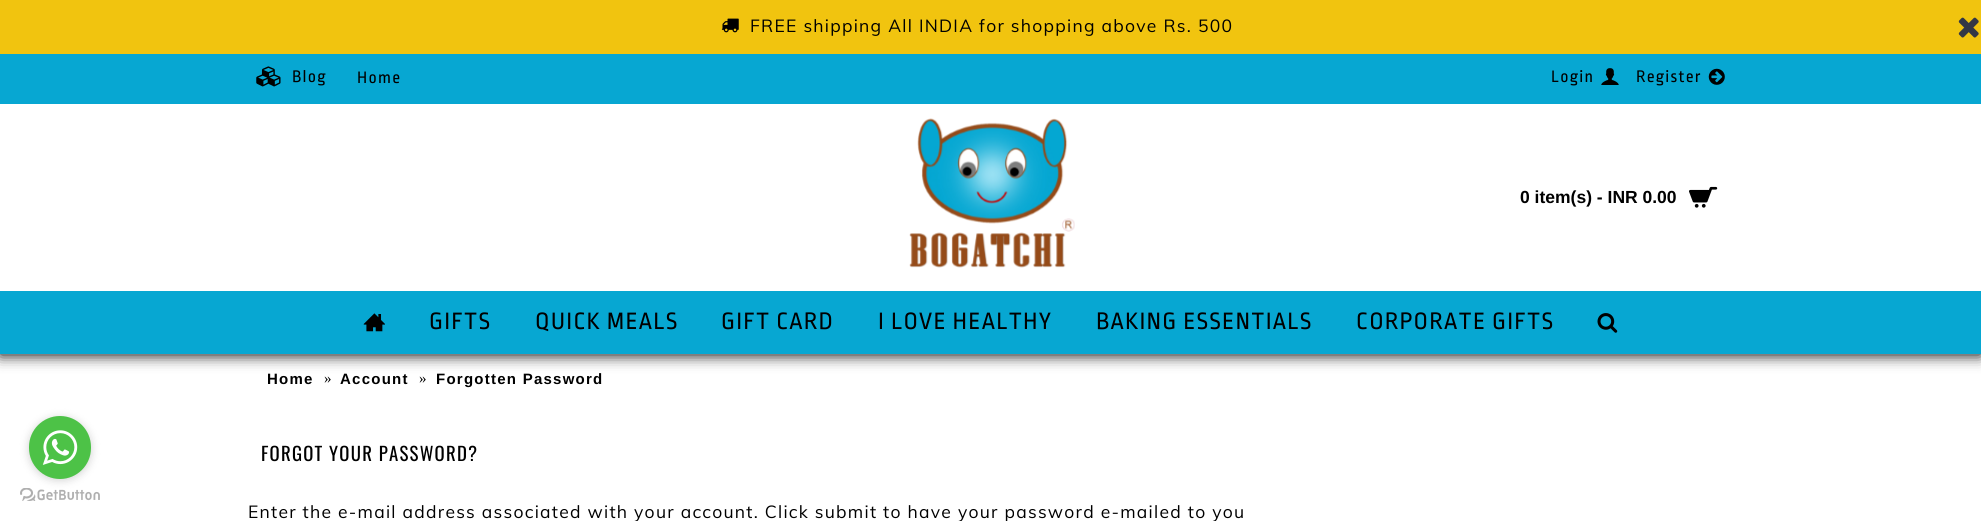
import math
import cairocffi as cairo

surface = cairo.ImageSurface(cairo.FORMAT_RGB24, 1981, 521)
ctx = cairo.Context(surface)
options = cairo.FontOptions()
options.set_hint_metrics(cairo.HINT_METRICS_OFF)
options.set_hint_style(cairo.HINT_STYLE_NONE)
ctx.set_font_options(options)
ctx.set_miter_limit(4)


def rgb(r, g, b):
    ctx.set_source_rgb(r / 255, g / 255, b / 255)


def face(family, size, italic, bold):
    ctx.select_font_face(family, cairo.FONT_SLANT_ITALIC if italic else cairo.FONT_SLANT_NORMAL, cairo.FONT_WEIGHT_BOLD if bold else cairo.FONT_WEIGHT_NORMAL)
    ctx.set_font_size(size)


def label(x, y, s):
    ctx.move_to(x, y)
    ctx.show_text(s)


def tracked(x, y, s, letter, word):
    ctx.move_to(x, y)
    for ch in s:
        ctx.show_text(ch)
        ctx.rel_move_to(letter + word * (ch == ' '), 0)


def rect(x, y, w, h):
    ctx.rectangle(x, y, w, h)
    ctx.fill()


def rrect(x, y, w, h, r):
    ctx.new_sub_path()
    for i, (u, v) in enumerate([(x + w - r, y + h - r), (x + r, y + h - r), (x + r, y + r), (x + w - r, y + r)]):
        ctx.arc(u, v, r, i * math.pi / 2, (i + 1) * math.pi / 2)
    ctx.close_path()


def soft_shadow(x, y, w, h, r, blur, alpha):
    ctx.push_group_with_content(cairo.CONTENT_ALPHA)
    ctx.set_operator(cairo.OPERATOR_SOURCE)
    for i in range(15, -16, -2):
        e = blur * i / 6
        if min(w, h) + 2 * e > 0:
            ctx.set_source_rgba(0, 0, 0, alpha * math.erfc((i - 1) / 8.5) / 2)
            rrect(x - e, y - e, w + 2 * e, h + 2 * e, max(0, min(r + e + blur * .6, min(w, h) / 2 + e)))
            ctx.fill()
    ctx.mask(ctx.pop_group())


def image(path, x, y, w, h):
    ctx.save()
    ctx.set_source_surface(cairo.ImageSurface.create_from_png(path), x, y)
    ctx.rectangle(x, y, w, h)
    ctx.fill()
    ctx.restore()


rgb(255, 255, 255)
ctx.paint()
rgb(0, 0, 0)
soft_shadow(0, 55, 1981, 300, 0, 7.5, 1)
rgb(241, 196, 15)
rect(0, 0, 1981, 54)
image('image0.png', 721, 18, 18, 15)
face('Muli', 17.5, 0, 0)
rgb(0, 0, 0)
tracked(750, 32, 'FREE shipping All INDIA for shopping above Rs. 500', 1.25, 0)
image('image1.png', 1958, 17, 21, 21)
rgb(255, 255, 255)
rect(0, 104, 1981, 187)
rgb(7, 167, 210)
rect(0, 54, 1981, 50)
image('image2.png', 256, 66, 25, 21)
face('Ropa Sans', 17.5, 0, 0)
rgb(0, 0, 0)
tracked(292, 82, 'Blog', 1.25, 0)
tracked(357, 83, 'Home', 1.25, 0)
tracked(1551, 82, 'Login', 1.25, 0)
image('image3.png', 1601, 68, 18, 17)
tracked(1636, 82, 'Register', 1.25, 0)
image('image4.png', 1708, 68, 17, 17)
image('image5.png', 909, 118, 166, 150)
face('Liberation Sans', 17.5, 0, 1)
label(1520, 203, '0 item(s) - INR 0.00')
image('image6.png', 1689, 186, 29, 22)
rgb(7, 167, 210)
rect(0, 291, 1981, 63)
image('image7.png', 363, 313, 22, 19)
face('Ropa Sans', 25, 0, 0)
rgb(0, 0, 0)
tracked(429, 329, 'GIFTS', 1.25, 0)
tracked(535, 329, 'QUICK MEALS', 1.25, 0)
tracked(721, 329, 'GIFT CARD', 1.25, 0)
tracked(878, 329, 'I LOVE HEALTHY', 1.25, 0)
tracked(1096, 329, 'BAKING ESSENTIALS', 1.25, 0)
tracked(1356, 329, 'CORPORATE GIFTS', 1.25, 0)
image('image8.png', 1597, 313, 21, 20)
image('image10.png', 20, 488, 80, 13)
rgb(136, 136, 136)
soft_shadow(29, 418, 62, 62, 31, 4.5, 0.4)
rgb(77, 194, 71)
rrect(29, 416, 62, 63, 31)
ctx.fill()
image('image9.png', 42, 430, 36, 35)
face('Liberation Sans', 15, 0, 1)
rgb(0, 0, 0)
tracked(267, 384, 'Home', 1.25, 0)
face('Liberation Serif', 15, 0, 0)
tracked(324, 383, '»', 1.25, 0)
face('Liberation Sans', 15, 0, 1)
tracked(340, 384, 'Account', 1.25, 0)
face('Liberation Serif', 15, 0, 0)
tracked(419, 383, '»', 1.25, 0)
face('Liberation Sans', 15, 0, 1)
tracked(436, 384, 'Forgotten Password', 1.25, 0)
face('Oswald', 18.75, 0, 0)
tracked(261, 461, 'FORGOT YOUR PASSWORD?', 1.25, 0)
face('Muli', 17.5, 0, 0)
tracked(248, 518, 'Enter the e-mail address associated with your account. Click submit to have your password e-mailed to you', 1.25, 0)
surface.write_to_png('render.png')
